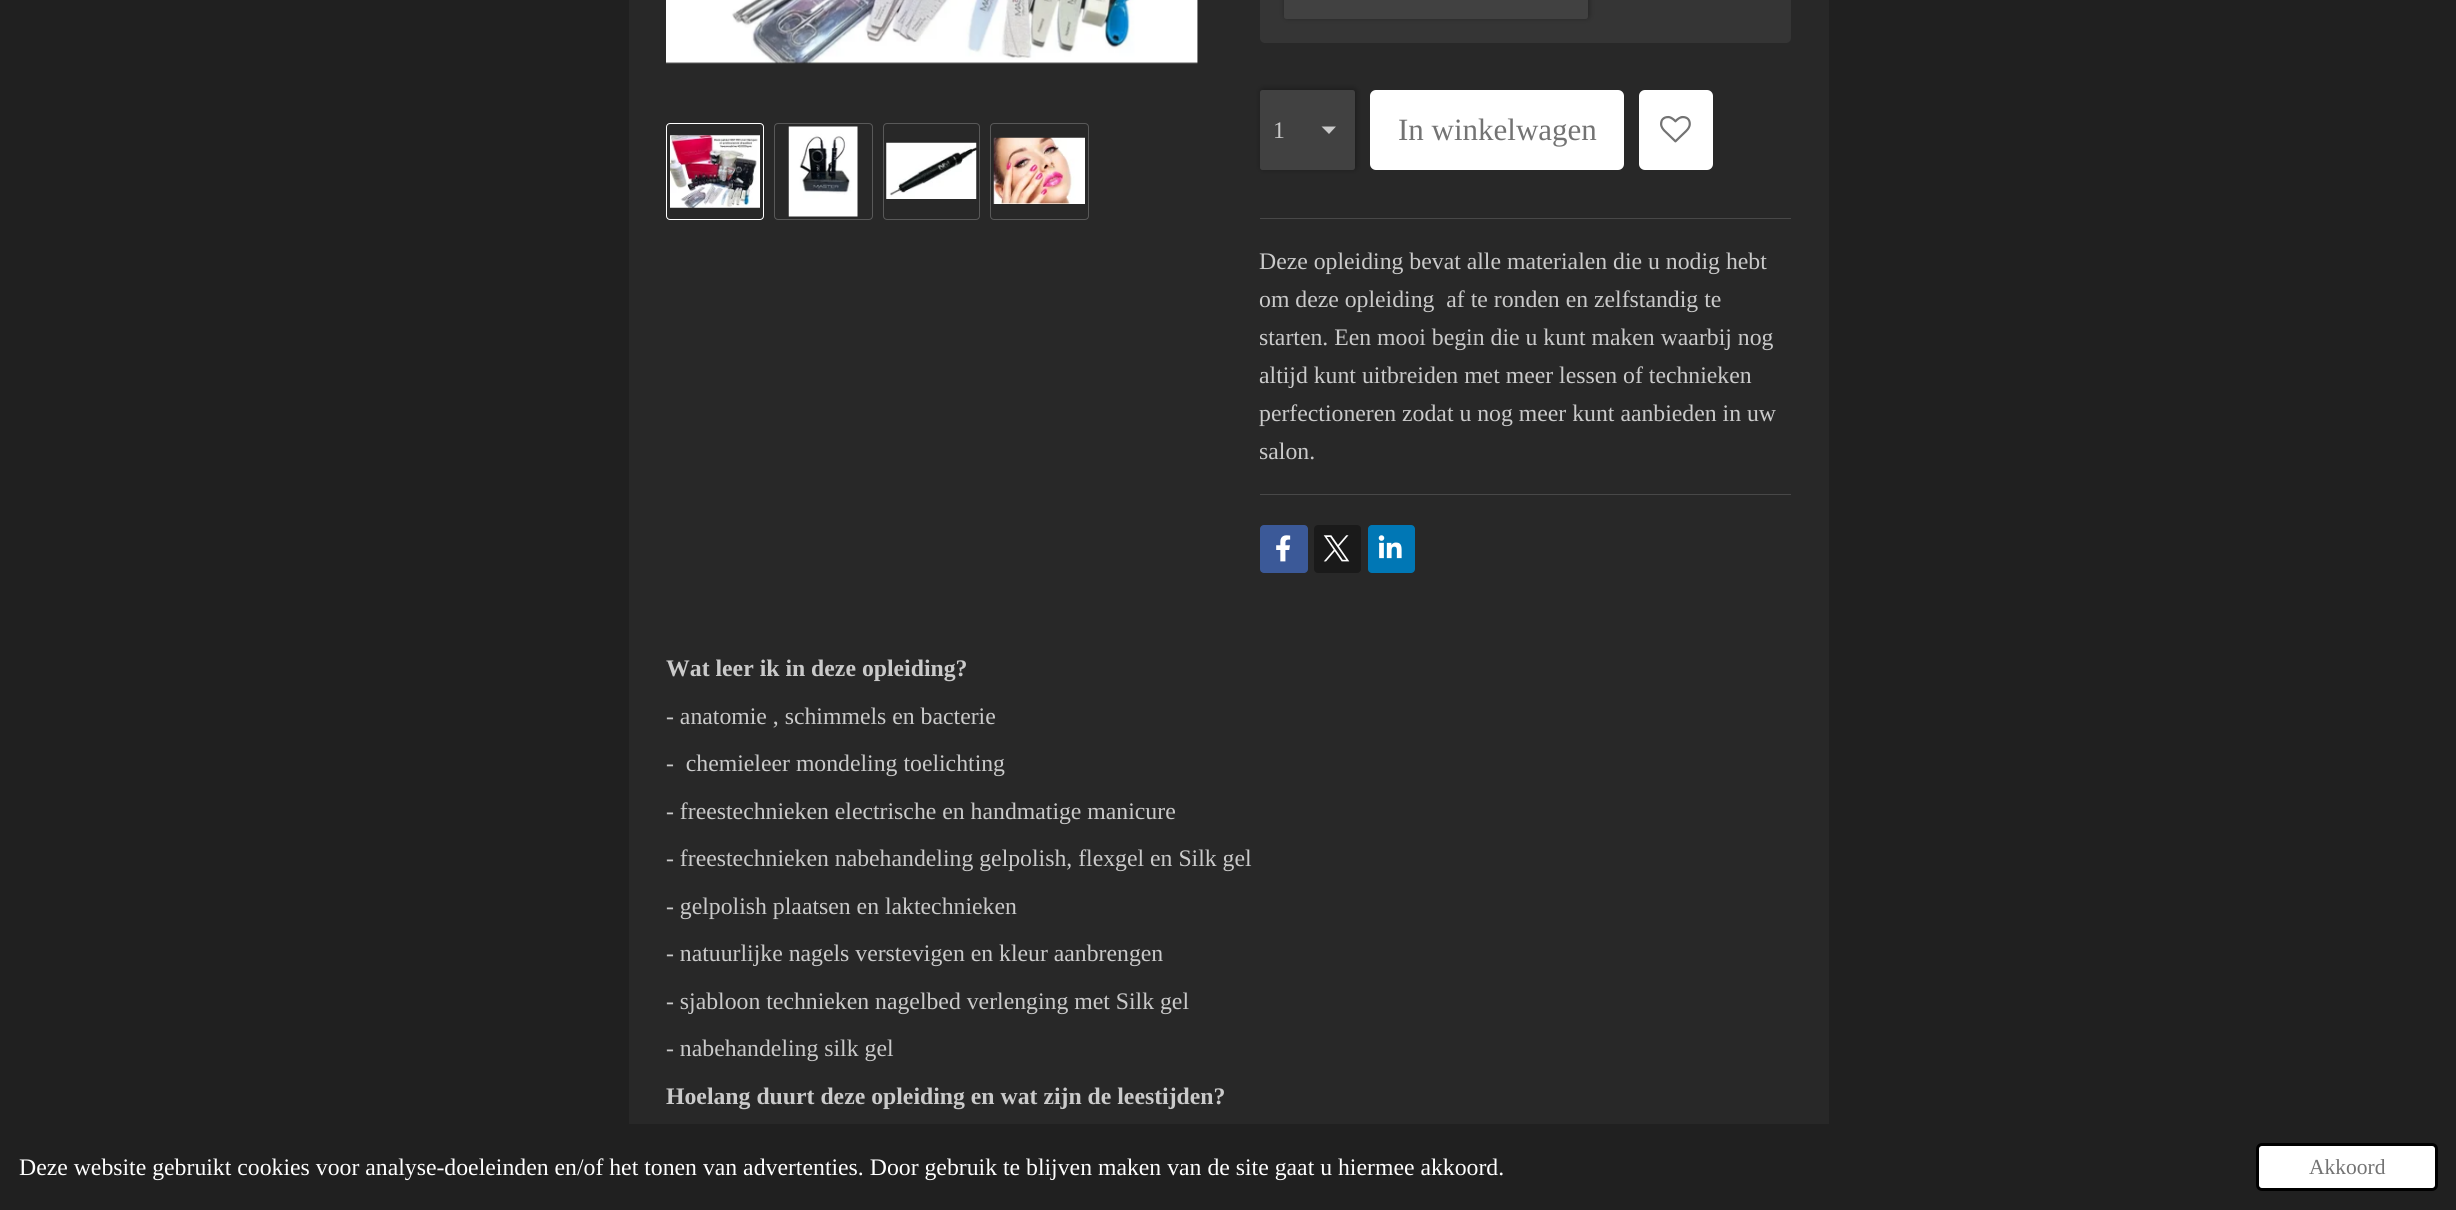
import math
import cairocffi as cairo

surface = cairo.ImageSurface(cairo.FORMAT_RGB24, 2456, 1210)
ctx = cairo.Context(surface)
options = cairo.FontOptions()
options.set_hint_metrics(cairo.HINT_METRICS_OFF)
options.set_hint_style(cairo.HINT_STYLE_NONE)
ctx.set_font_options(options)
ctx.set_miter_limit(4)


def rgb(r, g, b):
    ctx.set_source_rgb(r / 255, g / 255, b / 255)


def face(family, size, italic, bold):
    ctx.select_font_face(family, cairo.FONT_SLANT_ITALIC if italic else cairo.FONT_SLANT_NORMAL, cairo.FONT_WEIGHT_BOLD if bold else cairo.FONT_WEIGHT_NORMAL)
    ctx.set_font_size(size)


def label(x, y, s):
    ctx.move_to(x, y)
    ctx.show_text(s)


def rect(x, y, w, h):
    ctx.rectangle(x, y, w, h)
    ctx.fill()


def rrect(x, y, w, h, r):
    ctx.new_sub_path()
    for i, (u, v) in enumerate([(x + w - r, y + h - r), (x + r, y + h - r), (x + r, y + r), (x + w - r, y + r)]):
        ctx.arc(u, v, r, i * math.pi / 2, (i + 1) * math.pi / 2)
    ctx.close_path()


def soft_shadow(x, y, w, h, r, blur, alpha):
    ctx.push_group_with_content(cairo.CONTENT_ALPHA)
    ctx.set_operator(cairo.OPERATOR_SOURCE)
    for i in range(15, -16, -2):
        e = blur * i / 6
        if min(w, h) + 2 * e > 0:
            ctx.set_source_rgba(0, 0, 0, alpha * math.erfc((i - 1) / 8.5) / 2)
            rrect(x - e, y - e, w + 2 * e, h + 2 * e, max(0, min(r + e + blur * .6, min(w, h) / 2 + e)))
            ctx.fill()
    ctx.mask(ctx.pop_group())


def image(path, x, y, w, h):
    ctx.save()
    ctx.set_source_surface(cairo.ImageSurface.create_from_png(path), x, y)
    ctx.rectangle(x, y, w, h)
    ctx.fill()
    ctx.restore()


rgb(32, 32, 32)
ctx.paint()
rgb(40, 40, 40)
rect(629, 0, 1200, 1124)
image('image0.png', 666, 0, 532, 64)
rrect(666.5, 123.5, 97, 96, 3.5)
rgb(255, 255, 255)
ctx.set_line_width(1)
ctx.stroke()
image('image1.png', 670, 135, 90, 73)
rrect(774.5, 123.5, 98, 96, 3.5)
rgb(89, 89, 89)
ctx.stroke()
image('image2.png', 788, 126, 70, 91)
rrect(883.5, 123.5, 96, 96, 3.5)
ctx.stroke()
image('image3.png', 886, 142, 91, 57)
rrect(990.5, 123.5, 98, 96, 3.5)
ctx.stroke()
image('image4.png', 993, 137, 92, 67)
rgb(53, 53, 53)
rrect(1260, -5, 531, 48, 5)
ctx.fill()
rgb(0, 0, 0)
soft_shadow(1285, -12, 304, 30, 2.5, 3, 0.35)
rgb(65, 65, 65)
rrect(1284, -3, 304, 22, 2.5)
ctx.fill()
rgb(0, 0, 0)
soft_shadow(1261, 89, 95, 80, 2.5, 3, 0.35)
rgb(65, 65, 65)
rrect(1260, 90, 95, 80, 2.5)
ctx.fill()
rgb(202, 202, 202)
ctx.new_path()
ctx.move_to(1329, 134)
ctx.line_to(1321.5, 126.5)
ctx.line_to(1336, 126.5)
ctx.close_path()
ctx.fill()
face('Liberation Serif', 23.75, 0, 0)
label(1273, 138, '1')
rgb(255, 255, 255)
rrect(1370, 90, 254, 80, 6)
ctx.fill()
face('Liberation Serif', 31, 0, 0)
rgb(115, 115, 115)
label(1398, 140, 'In winkelwagen')
rgb(255, 255, 255)
rrect(1639, 90, 74, 80, 6)
ctx.fill()
image('image5.png', 1660, 115, 31, 28)
rgb(72, 72, 72)
rect(1260, 218, 531, 1)
face('Liberation Serif', 23.75, 0, 0)
rgb(202, 202, 202)
label(1259, 269, 'Deze opleiding bevat alle materialen die u nodig hebt')
label(1259, 307, 'om deze opleiding  af te ronden en zelfstandig te')
label(1259, 345, 'starten. Een mooi begin die u kunt maken waarbij nog')
label(1259, 383, 'altijd kunt uitbreiden met meer lessen of technieken')
label(1259, 421, 'perfectioneren zodat u nog meer kunt aanbieden in uw')
label(1259, 459, 'salon.')
rgb(72, 72, 72)
rect(1260, 494, 531, 1)
rgb(59, 89, 152)
rrect(1260, 525, 48, 48, 4)
ctx.fill()
image('image6.png', 1276, 535, 15, 27)
rgb(26, 26, 26)
rrect(1314, 525, 47, 48, 4)
ctx.fill()
image('image7.png', 1323, 535, 27, 27)
rgb(0, 119, 181)
rrect(1368, 525, 47, 48, 4)
ctx.fill()
image('image8.png', 1378, 535, 24, 24)
face('Liberation Serif', 23.75, 0, 1)
rgb(202, 202, 202)
label(666, 676, 'Wat leer ik in deze opleiding?')
face('Liberation Serif', 23.75, 0, 0)
label(666, 724, '- anatomie , schimmels en bacterie')
label(666, 771, '-  chemieleer mondeling toelichting')
label(666, 819, '- freestechnieken electrische en handmatige manicure')
label(666, 866, '- freestechnieken nabehandeling gelpolish, flexgel en Silk gel')
label(666, 914, '- gelpolish plaatsen en laktechnieken')
label(666, 961, '- natuurlijke nagels verstevigen en kleur aanbrengen')
label(666, 1009, '- sjabloon technieken nagelbed verlenging met Silk gel')
label(666, 1056, '- nabehandeling silk gel')
face('Liberation Serif', 23.75, 0, 1)
label(666, 1104, 'Hoelang duurt deze opleiding en wat zijn de leestijden?')
face('Liberation Serif', 23.75, 0, 0)
rgb(255, 255, 255)
label(19, 1175, 'Deze website gebruikt cookies voor analyse-doeleinden en/of het tonen van advertenties. Door gebruik te blijven maken van de site gaat u hiermee akkoord.')
rrect(2257.5, 1144.5, 179, 45, 4.5)
ctx.fill_preserve()
rgb(0, 0, 0)
ctx.set_line_width(3)
ctx.stroke()
face('Liberation Serif', 21.5, 0, 0)
rgb(115, 115, 115)
label(2309, 1174, 'Akkoord')
surface.write_to_png('render.png')
